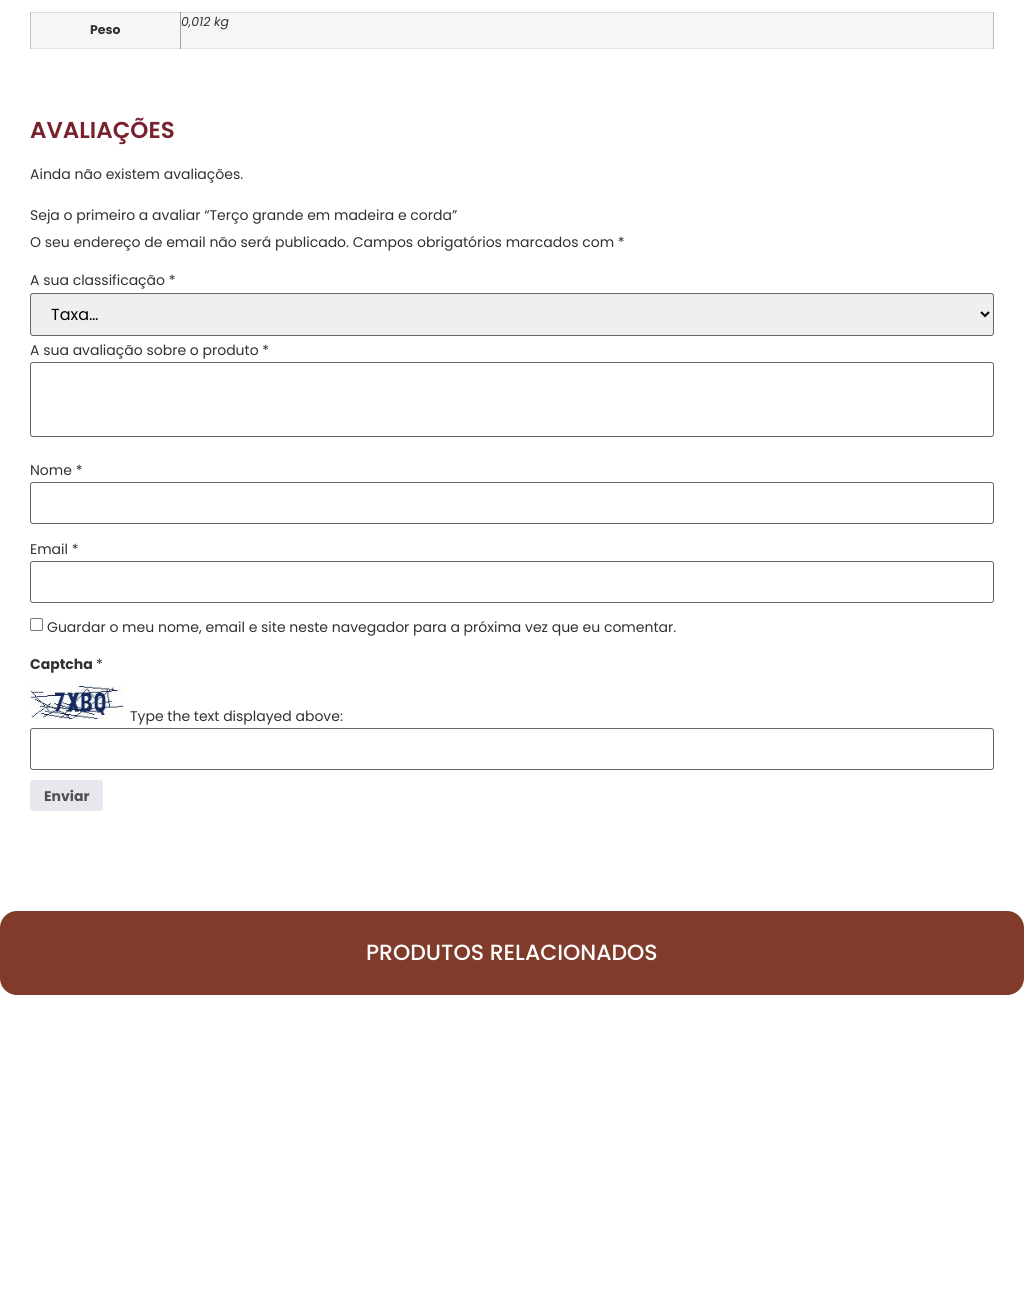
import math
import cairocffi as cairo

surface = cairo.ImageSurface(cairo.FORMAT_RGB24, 1024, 1298)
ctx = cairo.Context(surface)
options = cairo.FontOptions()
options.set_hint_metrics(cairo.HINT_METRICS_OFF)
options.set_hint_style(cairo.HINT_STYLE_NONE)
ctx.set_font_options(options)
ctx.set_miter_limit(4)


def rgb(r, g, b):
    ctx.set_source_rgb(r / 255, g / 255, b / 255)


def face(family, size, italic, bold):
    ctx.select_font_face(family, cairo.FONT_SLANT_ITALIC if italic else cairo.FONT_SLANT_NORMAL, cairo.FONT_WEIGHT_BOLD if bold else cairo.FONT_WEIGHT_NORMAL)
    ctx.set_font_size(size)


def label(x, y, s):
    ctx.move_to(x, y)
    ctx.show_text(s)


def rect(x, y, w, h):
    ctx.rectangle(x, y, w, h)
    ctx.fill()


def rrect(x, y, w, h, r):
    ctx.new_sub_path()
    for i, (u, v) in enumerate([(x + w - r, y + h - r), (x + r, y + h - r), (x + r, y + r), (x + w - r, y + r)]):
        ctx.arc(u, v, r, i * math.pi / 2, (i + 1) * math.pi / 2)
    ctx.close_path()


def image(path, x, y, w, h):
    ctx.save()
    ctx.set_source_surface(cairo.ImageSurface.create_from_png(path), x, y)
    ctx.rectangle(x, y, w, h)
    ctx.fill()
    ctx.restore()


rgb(255, 255, 255)
ctx.paint()
rgb(192, 192, 192)
rect(30, 12, 1, 37)
rgb(230, 230, 230)
rect(30, 48, 964, 1)
rgb(179, 179, 179)
rect(30, 48, 1, 1)
rgb(139, 139, 139)
rect(180, 48, 1, 1)
rgb(173, 173, 173)
rect(993, 48, 1, 1)
rgb(179, 179, 179)
rect(30, 12, 1, 1)
rgb(246, 246, 246)
rect(31, 13, 149, 35)
rgb(158, 158, 158)
rect(180, 12, 1, 36)
rgb(221, 221, 221)
rect(31, 12, 150, 1)
rgb(152, 152, 152)
rect(180, 12, 1, 1)
face('Poppins', 12.5, 0, 1)
rgb(49, 49, 49)
label(90, 34, 'Peso')
rgb(246, 246, 246)
rect(181, 13, 812, 35)
rgb(187, 187, 187)
rect(993, 12, 1, 36)
rgb(221, 221, 221)
rect(181, 12, 813, 1)
rgb(175, 175, 175)
rect(993, 12, 1, 1)
face('Poppins', 12.5, 1, 0)
rgb(49, 49, 49)
label(181, 26, '0,012 kg')
face('Poppins SemiBold', 23, 0, 0)
rgb(121, 34, 46)
label(30, 138, 'AVALIAÇÕES')
face('Poppins', 14, 0, 0)
rgb(49, 49, 49)
label(30, 179, 'Ainda não existem avaliações.')
label(30, 220, 'Seja o primeiro a avaliar “Terço grande em madeira e corda”')
label(30, 247, 'O seu endereço de email não será publicado. Campos obrigatórios marcados com *')
label(30, 285, 'A sua classificação *')
rgb(239, 239, 239)
rrect(30.5, 293.5, 963, 42, 2.5)
ctx.fill_preserve()
rgb(102, 102, 102)
ctx.set_line_width(1)
ctx.stroke()
ctx.new_path()
ctx.move_to(981, 312)
ctx.line_to(985, 316)
ctx.line_to(989, 312)
rgb(0, 0, 0)
ctx.set_line_width(2)
ctx.stroke()
face('Poppins', 16, 0, 0)
label(51, 320, 'Taxa…')
face('Poppins', 14, 0, 0)
rgb(49, 49, 49)
label(30, 355, 'A sua avaliação sobre o produto *')
rrect(30.5, 362.5, 963, 74, 2.5)
rgb(102, 102, 102)
ctx.set_line_width(1)
ctx.stroke()
rgb(49, 49, 49)
label(30, 475, 'Nome *')
rrect(30.5, 482.5, 963, 41, 2.5)
rgb(102, 102, 102)
ctx.stroke()
rgb(49, 49, 49)
label(30, 554, 'Email *')
rrect(30.5, 561.5, 963, 41, 2.5)
rgb(102, 102, 102)
ctx.stroke()
rrect(30.5, 618.5, 12, 12, 1.5)
rgb(118, 118, 118)
ctx.stroke()
rgb(49, 49, 49)
label(47, 632, 'Guardar o meu nome, email e site neste navegador para a próxima vez que eu comentar.')
face('Poppins', 14, 0, 1)
label(30, 669, 'Captcha')
face('Poppins', 14, 0, 0)
label(96, 669, '*')
image('image0.png', 30, 686, 94, 33)
label(130, 721, 'Type the text displayed above:')
rrect(30.5, 728.5, 963, 41, 2.5)
rgb(102, 102, 102)
ctx.stroke()
rgb(233, 230, 237)
rrect(30, 780, 73, 31, 3)
ctx.fill()
face('Poppins', 14, 0, 1)
rgb(81, 81, 81)
label(44, 801, 'Enviar')
rgb(128, 59, 42)
rrect(0, 911, 1024, 84, 17)
ctx.fill()
face('Poppins Medium', 22, 0, 0)
rgb(255, 255, 255)
label(366, 960, 'PRODUTOS RELACIONADOS')
surface.write_to_png('render.png')
